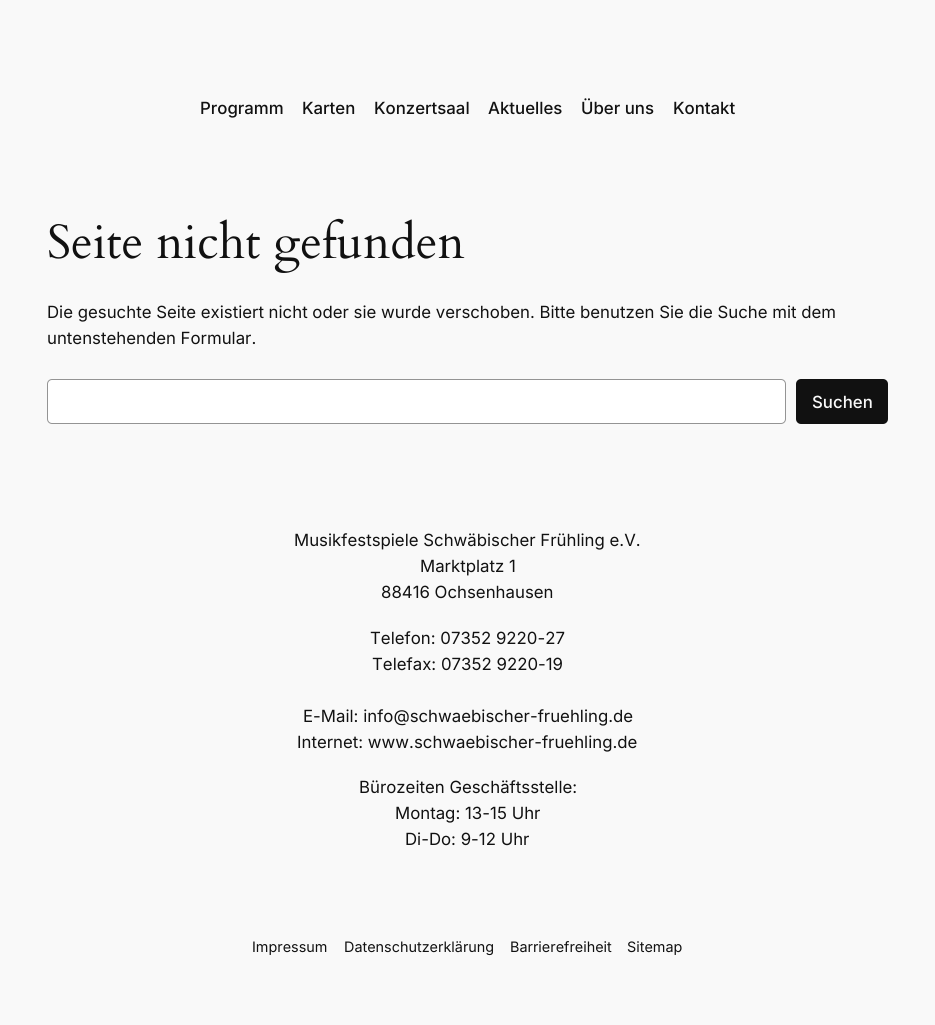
import math
import cairocffi as cairo

surface = cairo.ImageSurface(cairo.FORMAT_RGB24, 935, 1025)
ctx = cairo.Context(surface)
options = cairo.FontOptions()
options.set_hint_metrics(cairo.HINT_METRICS_OFF)
options.set_hint_style(cairo.HINT_STYLE_NONE)
ctx.set_font_options(options)
ctx.set_miter_limit(4)


def rgb(r, g, b):
    ctx.set_source_rgb(r / 255, g / 255, b / 255)


def face(family, size, italic, bold):
    ctx.select_font_face(family, cairo.FONT_SLANT_ITALIC if italic else cairo.FONT_SLANT_NORMAL, cairo.FONT_WEIGHT_BOLD if bold else cairo.FONT_WEIGHT_NORMAL)
    ctx.set_font_size(size)


def label(x, y, s):
    ctx.move_to(x, y)
    ctx.show_text(s)


def rrect(x, y, w, h, r):
    ctx.new_sub_path()
    for i, (u, v) in enumerate([(x + w - r, y + h - r), (x + r, y + h - r), (x + r, y + r), (x + w - r, y + r)]):
        ctx.arc(u, v, r, i * math.pi / 2, (i + 1) * math.pi / 2)
    ctx.close_path()


rgb(249, 249, 249)
ctx.paint()
face('Inter Medium', 16.8, 0, 0)
rgb(17, 17, 17)
label(200, 114, 'Programm')
label(302, 114, 'Karten')
label(374, 114, 'Konzertsaal')
label(488, 114, 'Aktuelles')
label(581, 114, 'Über uns')
label(673, 114, 'Kontakt')
face('Cardo', 48, 0, 0)
label(47, 258, 'Seite nicht gefunden')
face('Inter', 16.8, 0, 0)
label(47, 318, 'Die gesuchte Seite existiert nicht oder sie wurde verschoben. Bitte benutzen Sie die Suche mit dem')
label(47, 344, 'untenstehenden Formular.')
rgb(255, 255, 255)
rrect(47.5, 379.5, 738, 44, 4.5)
ctx.fill_preserve()
rgb(148, 148, 148)
ctx.set_line_width(1)
ctx.stroke()
rgb(17, 17, 17)
rrect(796, 379, 92, 45, 5)
ctx.fill()
face('Inter Medium', 16.8, 0, 0)
rgb(249, 249, 249)
label(812, 408, 'Suchen')
face('Inter', 16.8, 0, 0)
rgb(17, 17, 17)
label(294, 546, 'Musikfestspiele Schwäbischer Frühling e.V.')
label(420, 572, 'Marktplatz 1')
label(381, 598, '88416 Ochsenhausen')
label(370, 644, 'Telefon: 07352 9220-27')
label(372, 670, 'Telefax: 07352 9220-19')
label(303, 722, 'E-Mail: info@schwaebischer-fruehling.de')
label(297, 748, 'Internet: www.schwaebischer-fruehling.de')
label(359, 793, 'Bürozeiten Geschäftsstelle:')
label(395, 819, 'Montag: 13-15 Uhr')
label(405, 845, 'Di-Do: 9-12 Uhr')
face('Inter', 14.4, 0, 0)
label(252, 952, 'Impressum')
label(344, 952, 'Datenschutzerklärung')
label(510, 952, 'Barrierefreiheit')
label(627, 952, 'Sitemap')
surface.write_to_png('render.png')
